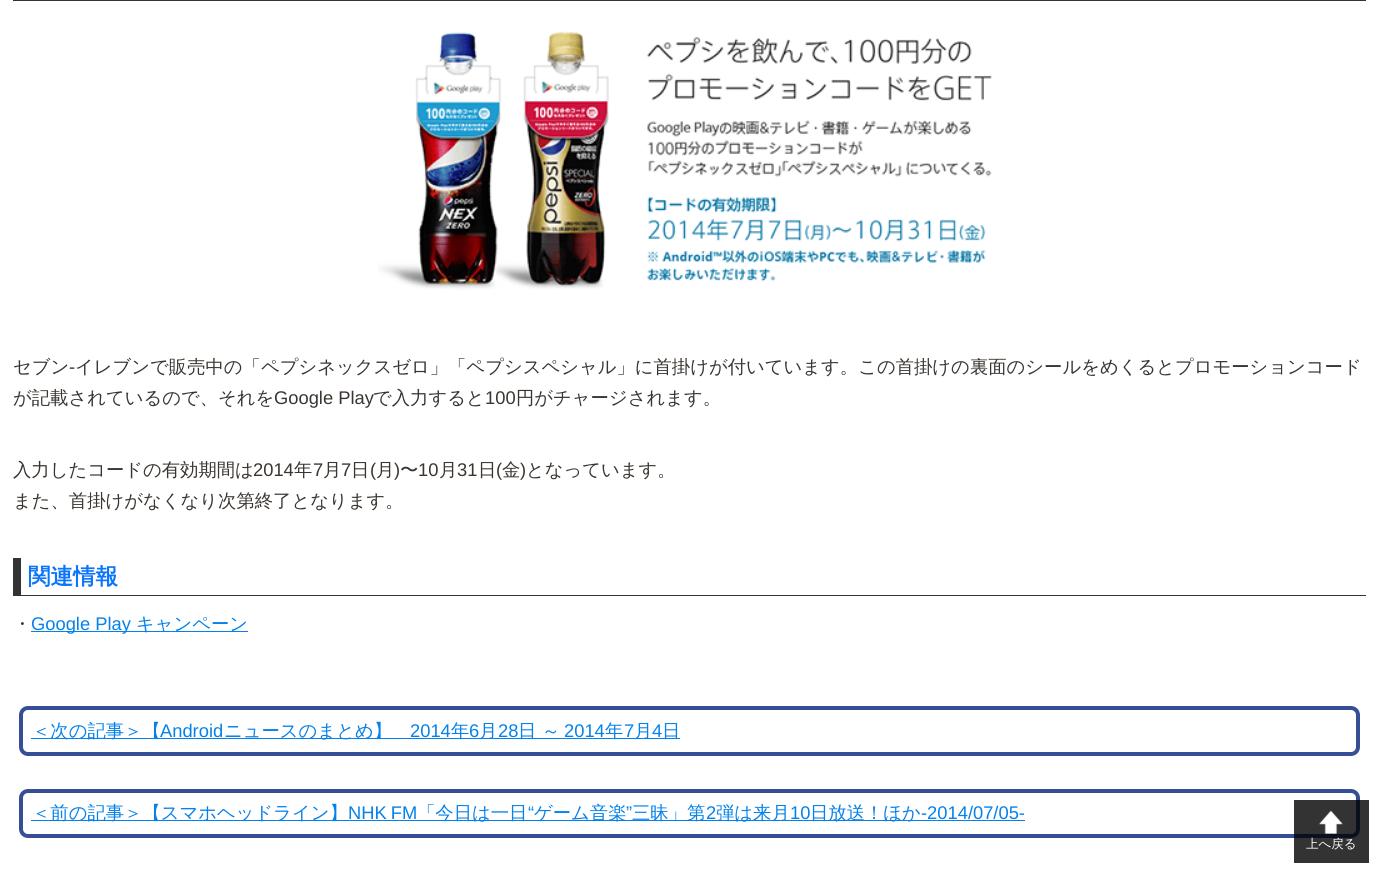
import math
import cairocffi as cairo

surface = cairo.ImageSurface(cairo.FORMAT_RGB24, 1378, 872)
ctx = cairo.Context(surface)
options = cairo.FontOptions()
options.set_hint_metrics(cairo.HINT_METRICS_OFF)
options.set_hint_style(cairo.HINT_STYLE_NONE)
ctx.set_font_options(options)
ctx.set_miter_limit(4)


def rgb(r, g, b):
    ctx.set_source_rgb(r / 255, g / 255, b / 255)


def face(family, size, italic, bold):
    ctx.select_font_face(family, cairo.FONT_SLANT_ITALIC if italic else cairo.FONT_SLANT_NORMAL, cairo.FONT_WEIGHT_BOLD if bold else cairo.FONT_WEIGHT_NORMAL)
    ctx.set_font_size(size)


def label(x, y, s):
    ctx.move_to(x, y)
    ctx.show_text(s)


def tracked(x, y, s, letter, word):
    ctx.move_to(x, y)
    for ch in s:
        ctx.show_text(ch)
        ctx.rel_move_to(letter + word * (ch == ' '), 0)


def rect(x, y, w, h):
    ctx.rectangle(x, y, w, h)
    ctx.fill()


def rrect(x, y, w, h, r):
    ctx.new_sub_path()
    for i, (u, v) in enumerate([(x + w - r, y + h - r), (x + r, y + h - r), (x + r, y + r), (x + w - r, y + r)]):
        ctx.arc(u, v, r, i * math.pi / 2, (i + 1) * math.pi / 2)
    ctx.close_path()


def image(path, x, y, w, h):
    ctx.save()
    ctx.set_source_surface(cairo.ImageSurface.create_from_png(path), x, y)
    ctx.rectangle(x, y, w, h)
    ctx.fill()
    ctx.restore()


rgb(255, 255, 255)
ctx.paint()
rgb(51, 51, 51)
rect(13, 0, 1353, 1)
image('image0.png', 378, 31, 614, 259)
face('WenQuanYi Zen Hei Medium', 18.33, 0, 0)
rgb(58, 53, 48)
label(13, 373, 'セブン')
face('Liberation Sans', 18.33, 0, 0)
label(69, 373, '-')
face('WenQuanYi Zen Hei Medium', 18.33, 0, 0)
label(75, 373, 'イレブンで販売中の「ペプシネックスゼロ」「ペプシスペシャル」に首掛けが付いています。この首掛けの裏面のシールをめくるとプロモーションコード')
label(13, 404, 'が記載されているので、それを')
face('Liberation Sans', 18.33, 0, 0)
label(274, 404, 'Google Play')
face('WenQuanYi Zen Hei Medium', 18.33, 0, 0)
label(373, 404, 'で入力すると')
face('Liberation Sans', 18.33, 0, 0)
label(485, 404, '100')
face('WenQuanYi Zen Hei Medium', 18.33, 0, 0)
label(516, 404, '円がチャージされます。')
label(13, 476, '入力したコードの有効期間は')
face('Liberation Sans', 18.33, 0, 0)
label(253, 476, '2014')
face('WenQuanYi Zen Hei Medium', 18.33, 0, 0)
label(294, 476, '年')
face('Liberation Sans', 18.33, 0, 0)
label(313, 476, '7')
face('WenQuanYi Zen Hei Medium', 18.33, 0, 0)
label(323, 476, '月')
face('Liberation Sans', 18.33, 0, 0)
label(341, 476, '7')
face('WenQuanYi Zen Hei Medium', 18.33, 0, 0)
label(351, 476, '日')
face('Liberation Sans', 18.33, 0, 0)
label(370, 476, '(')
face('WenQuanYi Zen Hei Medium', 18.33, 0, 0)
label(376, 476, '月')
face('Liberation Sans', 18.33, 0, 0)
label(394, 476, ')')
face('WenQuanYi Zen Hei Medium', 18.33, 0, 0)
label(400, 476, '〜')
face('Liberation Sans', 18.33, 0, 0)
label(418, 476, '10')
face('WenQuanYi Zen Hei Medium', 18.33, 0, 0)
label(439, 476, '月')
face('Liberation Sans', 18.33, 0, 0)
label(457, 476, '31')
face('WenQuanYi Zen Hei Medium', 18.33, 0, 0)
label(478, 476, '日')
face('Liberation Sans', 18.33, 0, 0)
label(496, 476, '(')
face('WenQuanYi Zen Hei Medium', 18.33, 0, 0)
label(502, 476, '金')
face('Liberation Sans', 18.33, 0, 0)
label(520, 476, ')')
face('WenQuanYi Zen Hei Medium', 18.33, 0, 0)
label(526, 476, 'となっています。')
label(13, 507, 'また、首掛けがなくなり次第終了となります。')
rgb(51, 51, 51)
rect(13, 595, 1353, 1)
rect(13, 558, 8, 38)
face('WenQuanYi Zen Hei', 22.5, 0, 1)
rgb(11, 117, 252)
label(28, 584, '関連情報')
face('WenQuanYi Zen Hei Medium', 18.33, 0, 0)
rgb(58, 53, 48)
label(13, 630, '・')
rgb(4, 129, 235)
rect(31, 631, 217, 1)
face('Liberation Sans', 18.33, 0, 0)
label(31, 630, 'Google Play')
face('WenQuanYi Zen Hei Medium', 18.33, 0, 0)
label(136, 630, 'キャンペーン')
rrect(21, 708, 1337, 46, 7)
rgb(54, 78, 150)
ctx.set_line_width(4)
ctx.stroke()
rgb(4, 129, 235)
rect(31, 738, 649, 1)
label(32, 737, '＜次の記事＞【')
face('Liberation Sans', 18.33, 0, 0)
label(160, 737, 'Android')
face('WenQuanYi Zen Hei Medium', 18.33, 0, 0)
label(224, 737, 'ニュースのまとめ】')
face('Liberation Sans', 18.33, 0, 0)
label(410, 737, '2014')
face('WenQuanYi Zen Hei Medium', 18.33, 0, 0)
label(451, 737, '年')
face('Liberation Sans', 18.33, 0, 0)
label(469, 737, '6')
face('WenQuanYi Zen Hei Medium', 18.33, 0, 0)
label(479, 737, '月')
face('Liberation Sans', 18.33, 0, 0)
label(498, 737, '28')
face('WenQuanYi Zen Hei Medium', 18.33, 0, 0)
label(518, 737, '日 ～')
face('Liberation Sans', 18.33, 0, 0)
label(564, 737, '2014')
face('WenQuanYi Zen Hei Medium', 18.33, 0, 0)
label(605, 737, '年')
face('Liberation Sans', 18.33, 0, 0)
label(624, 737, '7')
face('WenQuanYi Zen Hei Medium', 18.33, 0, 0)
label(634, 737, '月')
face('Liberation Sans', 18.33, 0, 0)
label(652, 737, '4')
face('WenQuanYi Zen Hei Medium', 18.33, 0, 0)
label(662, 737, '日')
rrect(21, 791, 1337, 45, 7)
rgb(54, 78, 150)
ctx.stroke()
rgb(4, 129, 235)
rect(31, 820, 994, 1)
label(32, 819, '＜前の記事＞【スマホヘッドライン】')
face('Liberation Sans', 18.33, 0, 0)
tracked(348, 819, 'NHK FM', 0, -1)
face('WenQuanYi Zen Hei Medium', 18.33, 0, 0)
label(417, 819, '「今日は一日')
face('Liberation Sans', 18.33, 0, 0)
label(528, 819, '“')
face('WenQuanYi Zen Hei Medium', 18.33, 0, 0)
label(534, 819, 'ゲーム音楽')
face('Liberation Sans', 18.33, 0, 0)
label(626, 819, '”')
face('WenQuanYi Zen Hei Medium', 18.33, 0, 0)
label(632, 819, '三昧」第')
face('Liberation Sans', 18.33, 0, 0)
label(706, 819, '2')
face('WenQuanYi Zen Hei Medium', 18.33, 0, 0)
label(716, 819, '弾は来月')
face('Liberation Sans', 18.33, 0, 0)
label(790, 819, '10')
face('WenQuanYi Zen Hei Medium', 18.33, 0, 0)
label(810, 819, '日放送！ほか')
face('Liberation Sans', 18.33, 0, 0)
label(921, 819, '-2014/07/05-')
ctx.set_source_rgba(0, 0, 0, 0.8)
rect(1294, 800, 75, 63)
image('image1.png', 1319, 810, 24, 24)
face('WenQuanYi Zen Hei Medium', 12.5, 0, 0)
rgb(255, 255, 255)
label(1306, 848, '上へ戻る')
surface.write_to_png('render.png')
